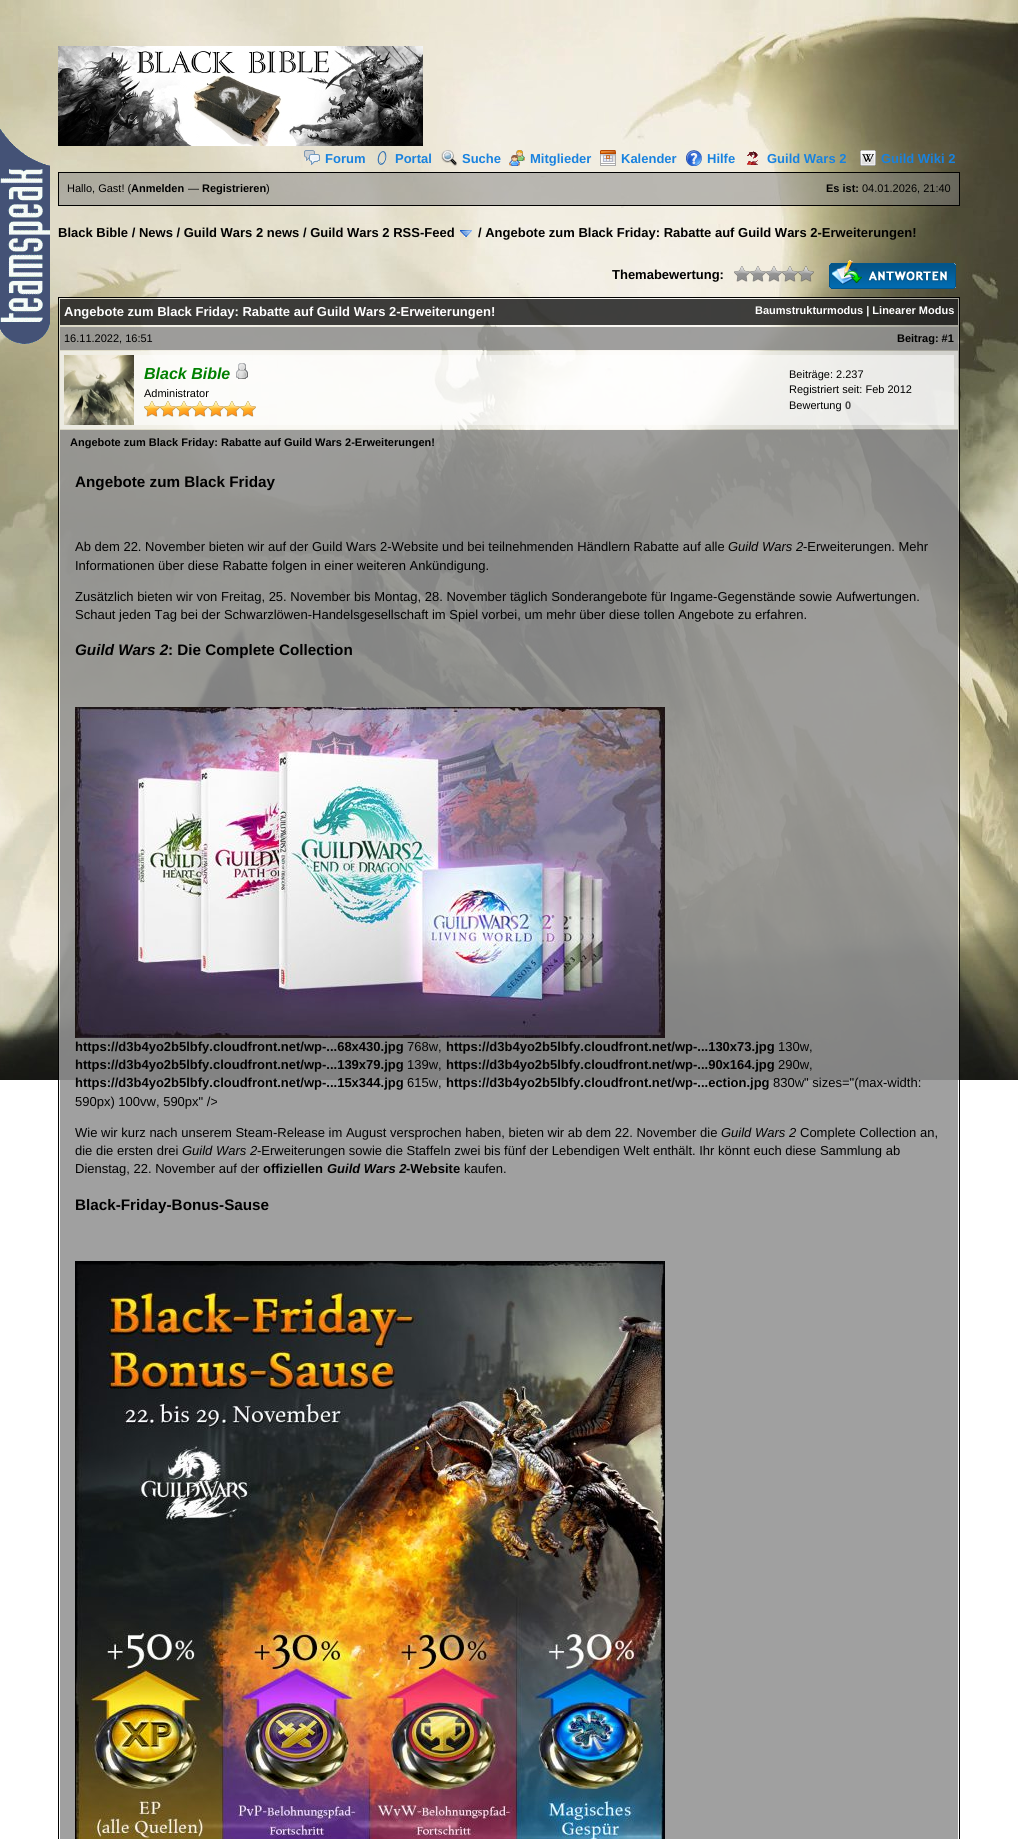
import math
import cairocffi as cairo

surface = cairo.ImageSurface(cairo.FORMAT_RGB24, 1018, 1839)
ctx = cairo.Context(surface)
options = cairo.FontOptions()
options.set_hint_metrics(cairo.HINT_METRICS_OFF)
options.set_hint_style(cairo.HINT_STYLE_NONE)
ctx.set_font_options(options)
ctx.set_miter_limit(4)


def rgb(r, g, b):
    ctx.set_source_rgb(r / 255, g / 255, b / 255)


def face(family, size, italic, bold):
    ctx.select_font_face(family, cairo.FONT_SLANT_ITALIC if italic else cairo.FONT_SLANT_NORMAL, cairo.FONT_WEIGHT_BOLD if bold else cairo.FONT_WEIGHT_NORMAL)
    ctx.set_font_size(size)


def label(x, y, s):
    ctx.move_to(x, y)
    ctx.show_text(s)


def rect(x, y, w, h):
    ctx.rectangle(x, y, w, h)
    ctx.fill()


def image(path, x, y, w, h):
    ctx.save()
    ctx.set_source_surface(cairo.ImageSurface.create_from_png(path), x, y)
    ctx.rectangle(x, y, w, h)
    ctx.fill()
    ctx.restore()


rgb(255, 255, 255)
ctx.paint()
image('image0.png', 0, 0, 1018, 1080)
image('image1.png', 0, 129, 50, 215)
image('image2.png', 58, 46, 365, 100)
image('image3.png', 304, 150, 16, 15)
face('Liberation Sans', 13, 0, 1)
rgb(24, 130, 223)
label(325, 163, 'Forum')
image('image4.png', 377, 151, 10, 14)
label(395, 163, 'Portal')
image('image5.png', 441, 150, 16, 16)
label(462, 163, 'Suche')
image('image6.png', 509, 150, 16, 16)
label(530, 163, 'Mitglieder')
image('image7.png', 600, 150, 16, 16)
label(621, 163, 'Kalender')
image('image8.png', 686, 150, 16, 16)
label(707, 163, 'Hilfe')
image('image9.png', 747, 151, 11, 14)
label(767, 163, 'Guild Wars 2')
image('image10.png', 860, 150, 16, 16)
label(881, 163, 'Guild Wiki 2')
ctx.set_source_rgba(0.506, 0.506, 0.506, 0.5)
ctx.rectangle(58.5, 172.5, 901, 33)
ctx.fill_preserve()
rgb(0, 0, 0)
ctx.set_line_width(1)
ctx.stroke()
face('Liberation Sans', 11, 0, 0)
label(67, 192, 'Hallo, Gast! (')
face('Liberation Sans', 11, 0, 1)
label(131, 192, 'Anmelden')
face('Liberation Sans', 11, 0, 0)
label(188, 192, '—')
face('Liberation Sans', 11, 0, 1)
label(202, 192, 'Registrieren')
face('Liberation Sans', 11, 0, 0)
label(266, 192, ')')
face('Liberation Sans', 11, 0, 1)
label(826, 192, 'Es ist:')
face('Liberation Sans', 11, 0, 0)
label(862, 192, '04.01.2026, 21:40')
face('Liberation Sans', 13, 0, 1)
label(58, 237, 'Black Bible / News / Guild Wars 2 news / Guild Wars 2 RSS-Feed')
image('image11.png', 460, 230, 12, 7)
label(478, 237, '/ Angebote zum Black Friday: Rabatte auf Guild Wars 2-Erweiterungen!')
label(612, 279, 'Themabewertung:')
image('image12.png', 734, 266, 80, 16)
image('image13.png', 829, 260, 127, 29)
ctx.set_source_rgba(1, 1, 1, 0.5)
rect(59, 298, 900, 28)
rgb(0, 0, 0)
rect(58, 297, 902, 1)
rect(959, 297, 1, 1542)
rect(58, 297, 1, 1542)
ctx.set_source_rgba(0, 0, 0, 0.75)
rect(60, 299, 898, 26)
rgb(255, 255, 255)
label(64, 316, 'Angebote zum Black Friday: Rabatte auf Guild Wars 2-Erweiterungen!')
face('Liberation Sans', 11, 0, 1)
label(755, 314, 'Baumstrukturmodus | Linearer Modus')
ctx.set_source_rgba(1, 1, 1, 0.5)
rect(59, 326, 900, 754)
ctx.set_source_rgba(0.502, 0.502, 0.502, 0.75)
rect(60, 327, 898, 23)
face('Liberation Sans', 11, 0, 0)
rgb(0, 0, 0)
label(64, 342, '16.11.2022, 16:51')
face('Liberation Sans', 11, 0, 1)
label(897, 342, 'Beitrag: #1')
ctx.set_source_rgba(1, 1, 1, 0.5)
rect(60, 351, 898, 78)
rect(134, 355, 820, 70)
image('image14.png', 64, 355, 70, 70)
face('Liberation Sans', 16, 1, 1)
rgb(0, 128, 0)
label(144, 379, 'Black Bible')
image('image15.png', 236, 363, 12, 16)
face('Liberation Sans', 11, 0, 0)
rgb(0, 0, 0)
label(144, 397, 'Administrator')
image('image16.png', 144, 401, 16, 16)
image('image17.png', 160, 401, 16, 16)
image('image18.png', 176, 401, 16, 16)
image('image19.png', 192, 401, 16, 16)
image('image20.png', 208, 401, 16, 16)
image('image21.png', 224, 401, 16, 16)
image('image22.png', 240, 401, 16, 16)
label(789, 378, 'Beiträge: 2.237')
label(789, 393, 'Registriert seit: Feb 2012')
label(789, 409, 'Bewertung')
face('Liberation Sans', 11, 0, 1)
rgb(68, 68, 68)
label(845, 409, '0')
ctx.set_source_rgba(0.502, 0.502, 0.502, 0.75)
rect(60, 430, 898, 1409)
rgb(0, 0, 0)
label(70, 446, 'Angebote zum Black Friday: Rabatte auf Guild Wars 2-Erweiterungen!')
face('Liberation Sans', 15.25, 0, 1)
label(75, 487, 'Angebote zum Black Friday')
face('Liberation Sans', 13, 0, 0)
label(75, 551, 'Ab dem 22. November bieten wir auf der Guild Wars 2-Website und bei teilnehmenden Händlern Rabatte auf alle')
face('Liberation Sans', 13, 1, 0)
label(728, 551, 'Guild Wars 2')
face('Liberation Sans', 13, 0, 0)
label(803, 551, '-Erweiterungen. Mehr')
label(75, 570, 'Informationen über diese Rabatte folgen in einer weiteren Ankündigung.')
label(75, 601, 'Zusätzlich bieten wir von Freitag, 25. November bis Montag, 28. November täglich Sonderangebote für Ingame-Gegenstände sowie Aufwertungen.')
label(75, 619, 'Schaut jeden Tag bei der Schwarzlöwen-Handelsgesellschaft im Spiel vorbei, um mehr über diese tollen Angebote zu erfahren.')
face('Liberation Sans', 15.25, 1, 1)
label(75, 655, 'Guild Wars 2')
face('Liberation Sans', 15.25, 0, 1)
label(168, 655, ': Die Complete Collection')
image('image23.png', 75, 707, 590, 331)
face('Liberation Sans', 13, 0, 1)
label(75, 1051, 'https://d3b4yo2b5lbfy.cloudfront.net/wp-...68x430.jpg')
face('Liberation Sans', 13, 0, 0)
label(407, 1051, '768w,')
face('Liberation Sans', 13, 0, 1)
label(446, 1051, 'https://d3b4yo2b5lbfy.cloudfront.net/wp-...130x73.jpg')
face('Liberation Sans', 13, 0, 0)
label(778, 1051, '130w,')
face('Liberation Sans', 13, 0, 1)
label(75, 1069, 'https://d3b4yo2b5lbfy.cloudfront.net/wp-...139x79.jpg')
face('Liberation Sans', 13, 0, 0)
label(407, 1069, '139w,')
face('Liberation Sans', 13, 0, 1)
label(446, 1069, 'https://d3b4yo2b5lbfy.cloudfront.net/wp-...90x164.jpg')
face('Liberation Sans', 13, 0, 0)
label(778, 1069, '290w,')
face('Liberation Sans', 13, 0, 1)
label(75, 1087, 'https://d3b4yo2b5lbfy.cloudfront.net/wp-...15x344.jpg')
face('Liberation Sans', 13, 0, 0)
label(407, 1087, '615w,')
face('Liberation Sans', 13, 0, 1)
label(446, 1087, 'https://d3b4yo2b5lbfy.cloudfront.net/wp-...ection.jpg')
face('Liberation Sans', 13, 0, 0)
label(773, 1087, '830w" sizes="(max-width:')
label(75, 1106, '590px) 100vw, 590px" />')
label(75, 1137, 'Wie wir kurz nach unserem Steam-Release im August versprochen haben, bieten wir ab dem 22. November die')
face('Liberation Sans', 13, 1, 0)
label(721, 1137, 'Guild Wars 2')
face('Liberation Sans', 13, 0, 0)
label(800, 1137, 'Complete Collection an,')
label(75, 1155, 'die die ersten drei')
face('Liberation Sans', 13, 1, 0)
label(182, 1155, 'Guild Wars 2')
face('Liberation Sans', 13, 0, 0)
label(257, 1155, '-Erweiterungen sowie die Staffeln zwei bis fünf der Lebendigen Welt enthält. Ihr könnt euch diese Sammlung ab')
label(75, 1173, 'Dienstag, 22. November auf der')
face('Liberation Sans', 13, 0, 1)
label(263, 1173, 'offiziellen')
face('Liberation Sans', 13, 1, 1)
label(327, 1173, 'Guild Wars 2')
face('Liberation Sans', 13, 0, 1)
label(406, 1173, '-Website')
face('Liberation Sans', 13, 0, 0)
label(464, 1173, 'kaufen.')
face('Liberation Sans', 15.25, 0, 1)
label(75, 1210, 'Black-Friday-Bonus-Sause')
image('image24.png', 75, 1261, 590, 578)
surface.write_to_png('render.png')
